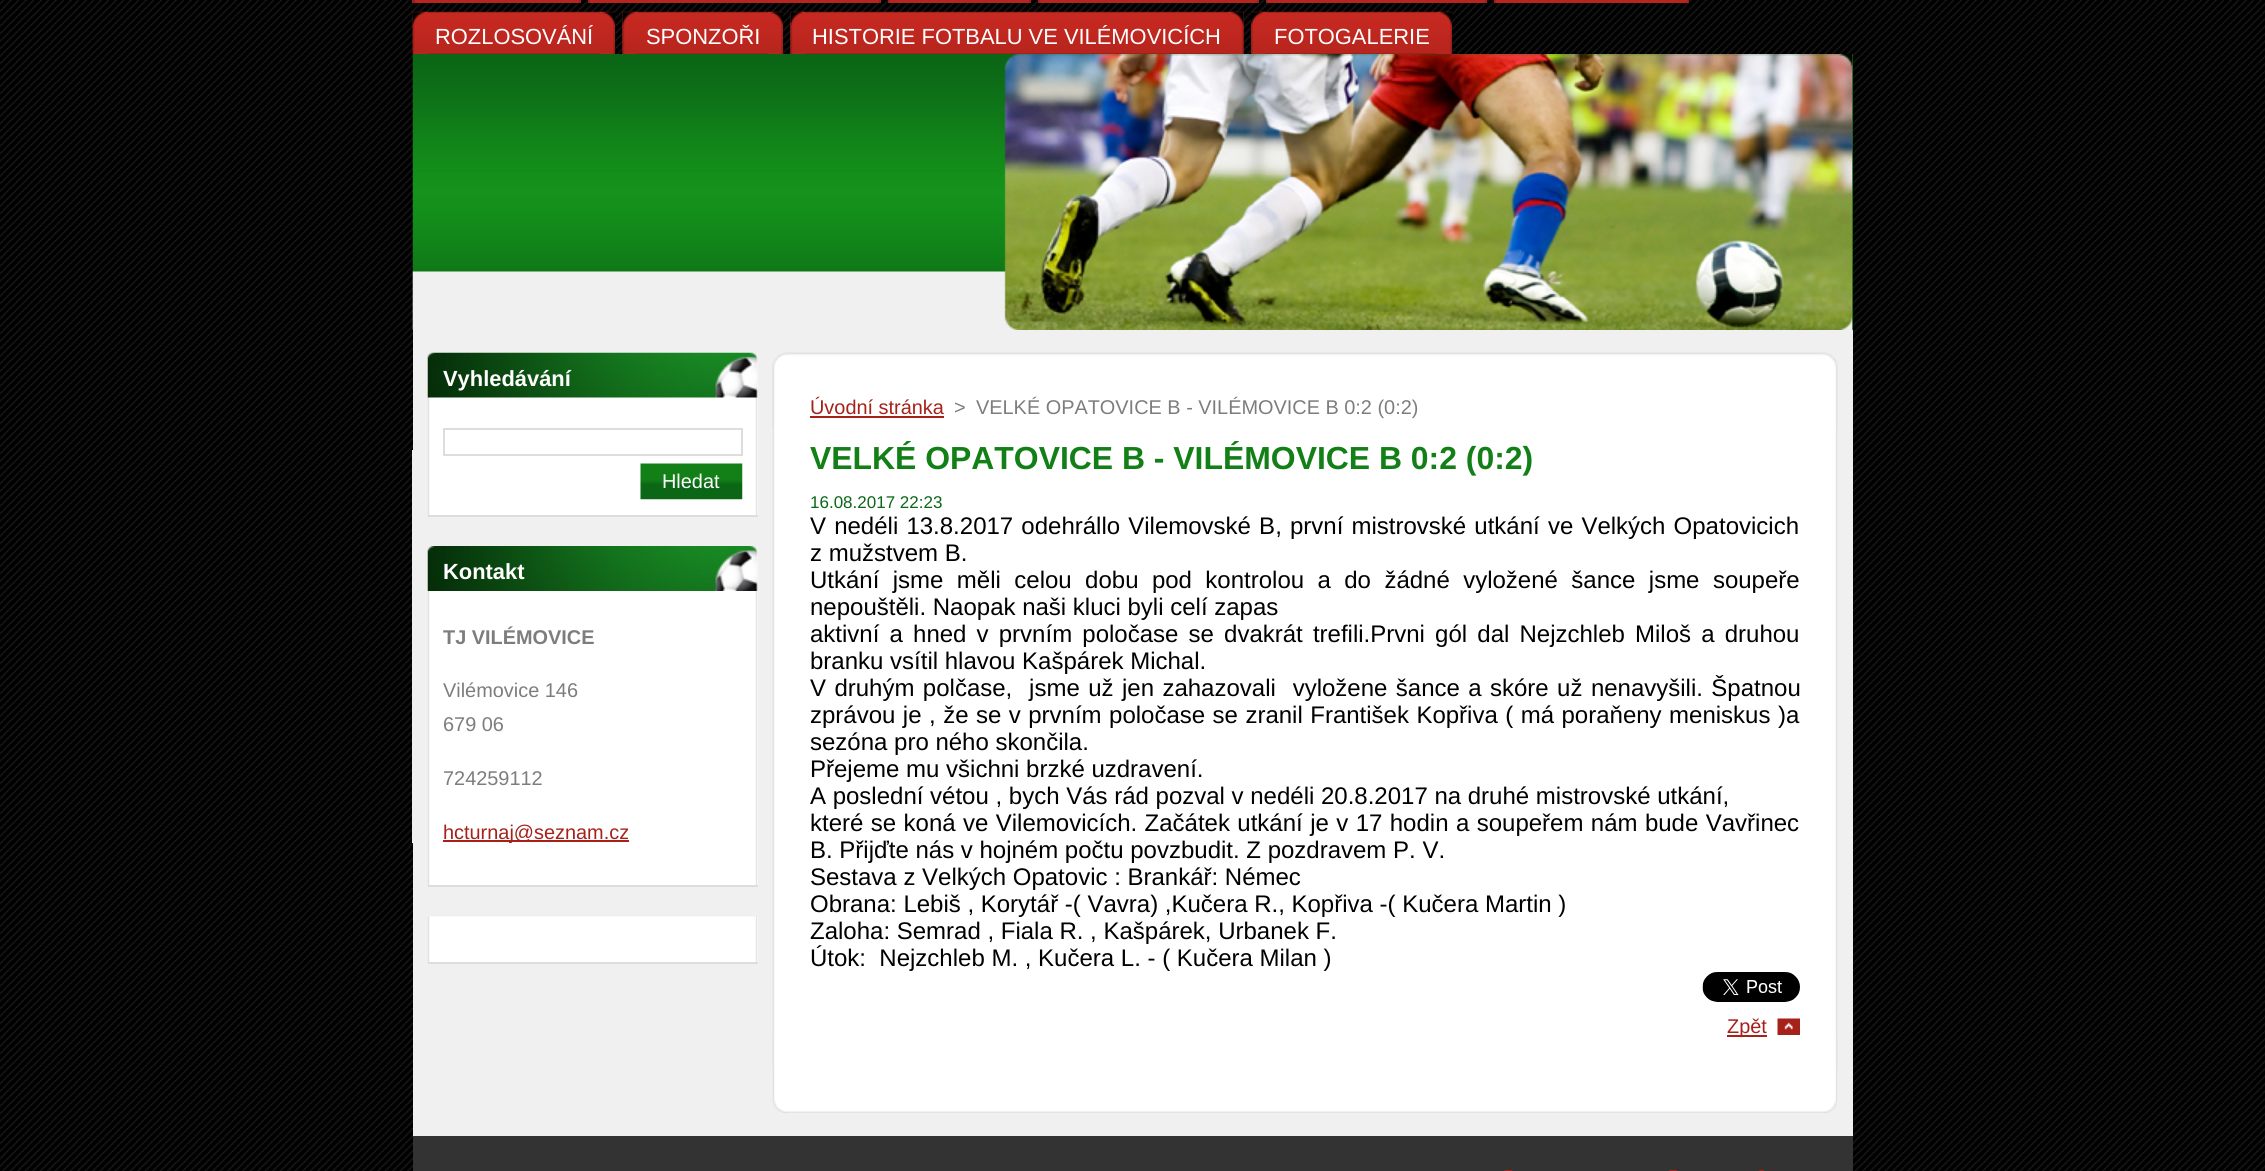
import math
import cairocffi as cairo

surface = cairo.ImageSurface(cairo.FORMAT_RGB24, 2265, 1171)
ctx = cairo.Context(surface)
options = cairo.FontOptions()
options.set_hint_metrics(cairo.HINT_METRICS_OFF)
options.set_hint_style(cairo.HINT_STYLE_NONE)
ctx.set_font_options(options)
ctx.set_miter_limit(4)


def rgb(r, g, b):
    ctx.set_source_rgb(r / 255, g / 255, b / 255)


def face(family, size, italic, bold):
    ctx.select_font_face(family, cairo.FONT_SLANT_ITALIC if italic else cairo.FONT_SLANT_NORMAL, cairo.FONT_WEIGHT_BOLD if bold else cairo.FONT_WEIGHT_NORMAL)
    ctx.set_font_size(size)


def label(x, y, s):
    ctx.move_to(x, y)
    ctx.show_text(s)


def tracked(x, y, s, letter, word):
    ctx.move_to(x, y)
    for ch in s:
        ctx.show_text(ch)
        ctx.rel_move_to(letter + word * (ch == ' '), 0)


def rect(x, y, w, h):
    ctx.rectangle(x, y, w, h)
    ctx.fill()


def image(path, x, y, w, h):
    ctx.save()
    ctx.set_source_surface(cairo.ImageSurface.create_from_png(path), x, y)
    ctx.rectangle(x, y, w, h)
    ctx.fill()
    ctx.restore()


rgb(255, 255, 255)
ctx.paint()
image('image0.png', 0, 0, 2265, 1171)
rgb(240, 240, 240)
rect(412, 450, 1, 393)
rgb(182, 37, 30)
rect(412, 0, 169, 3)
rgb(154, 30, 25)
rect(412, 0, 3, 3)
image('image1.png', 579, 0, 2, 3)
rgb(182, 37, 30)
rect(588, 0, 293, 3)
image('image2.png', 588, 0, 2, 3)
image('image1.png', 879, 0, 2, 3)
rect(888, 0, 143, 3)
image('image3.png', 888, 0, 2, 3)
image('image1.png', 1029, 0, 2, 3)
rect(1038, 0, 221, 3)
image('image2.png', 1038, 0, 2, 3)
image('image1.png', 1257, 0, 2, 3)
rect(1266, 0, 221, 3)
image('image2.png', 1266, 0, 2, 3)
image('image1.png', 1485, 0, 2, 3)
rect(1494, 0, 195, 3)
image('image2.png', 1494, 0, 2, 3)
image('image4.png', 1687, 0, 2, 3)
image('image5.png', 412, 11, 203, 43)
image('image6.png', 412, 11, 16, 43)
image('image7.png', 600, 11, 15, 43)
face('Liberation Sans', 21.9, 0, 0)
rgb(255, 255, 255)
label(435, 44, 'ROZLOSOVÁNÍ')
image('image8.png', 622, 11, 161, 43)
image('image9.png', 622, 11, 16, 43)
image('image10.png', 768, 11, 15, 43)
label(646, 44, 'SPONZOŘI')
image('image11.png', 790, 11, 454, 43)
image('image12.png', 790, 11, 16, 43)
image('image13.png', 1228, 11, 16, 43)
label(812, 44, 'HISTORIE FOTBALU VE VILÉMOVICÍCH')
image('image14.png', 1251, 11, 201, 43)
image('image15.png', 1251, 11, 15, 43)
image('image16.png', 1437, 11, 15, 43)
label(1274, 44, 'FOTOGALERIE')
rgb(11, 102, 22)
rect(1852, 54, 1, 276)
image('image17.png', 412, 54, 1441, 276)
image('image18.png', 1839, 54, 14, 13)
rgb(240, 240, 240)
rect(413, 330, 1440, 806)
rgb(255, 255, 255)
rect(757, 353, 1, 162)
image('image19.png', 427, 353, 331, 163)
rgb(221, 221, 221)
rect(428, 515, 330, 2)
image('image20.png', 427, 352, 331, 46)
face('Liberation Sans', 21.9, 0, 1)
rgb(255, 255, 255)
label(443, 386, 'Vyhledávání')
ctx.rectangle(444, 429, 298, 26)
rgb(221, 221, 221)
ctx.stroke()
image('image21.png', 640, 463, 103, 37)
face('Liberation Sans', 19.9, 0, 0)
rgb(255, 255, 255)
label(662, 488, 'Hledat')
rect(757, 546, 1, 339)
image('image22.png', 427, 546, 331, 341)
rgb(221, 221, 221)
rect(428, 885, 330, 2)
image('image23.png', 427, 546, 331, 45)
face('Liberation Sans', 21.9, 0, 1)
rgb(255, 255, 255)
label(443, 579, 'Kontakt')
ctx.save()
ctx.rectangle(443, 621, 300, 249)
ctx.clip()
face('Liberation Sans', 19.9, 0, 1)
rgb(125, 125, 125)
label(443, 644, 'TJ VILÉMOVICE')
ctx.restore()
face('Liberation Sans', 19.9, 0, 0)
rgb(125, 125, 125)
label(443, 697, 'Vilémovice 146')
label(443, 731, '679 06')
label(443, 785, '724259112')
rgb(166, 33, 26)
rect(443, 840, 186, 2)
label(443, 839, 'hcturnaj@seznam.cz')
rgb(255, 255, 255)
rect(757, 917, 1, 45)
image('image24.png', 427, 916, 331, 47)
rgb(221, 221, 221)
rect(428, 962, 330, 2)
image('image25.png', 772, 352, 1066, 76)
image('image26.png', 772, 1038, 1066, 75)
image('image27.png', 772, 427, 1066, 641)
rgb(166, 33, 26)
label(810, 414, 'Úvodní stránka')
rect(810, 416, 134, 2)
rgb(125, 125, 125)
label(954, 414, '>')
label(976, 414, 'VELKÉ OPATOVICE B - VILÉMOVICE B 0:2 (0:2)')
ctx.save()
ctx.rectangle(810, 441, 990, 597)
ctx.clip()
face('Liberation Sans', 31.9, 0, 1)
rgb(18, 127, 23)
label(810, 469, 'VELKÉ OPATOVICE B - VILÉMOVICE B 0:2 (0:2)')
ctx.restore()
face('Liberation Sans', 17, 0, 0)
rgb(11, 102, 22)
label(810, 508, '16.08.2017 22:23')
face('Liberation Sans', 24, 0, 0)
rgb(0, 0, 0)
tracked(810, 534, 'V nedéli 13.8.2017 odehrállo Vilemovské B, první mistrovské utkání ve Velkých Opatovicich', 0, 1.5)
label(810, 561, 'z mužstvem B.')
tracked(810, 588, 'Utkání jsme měli celou dobu pod kontrolou a do žádné vyložené šance jsme soupeře', 0, 6.75)
label(810, 615, 'nepouštěli. Naopak naši kluci byli celí zapas')
tracked(810, 642, 'aktivní a hned v prvním poločase se dvakrát trefili.Prvni gól dal Nejzchleb Miloš a druhou', 0, 3.5)
label(810, 669, 'branku vsítil hlavou Kašpárek Michal.')
tracked(810, 696, 'V druhým polčase,  jsme už jen zahazovali  vyložene šance a skóre už nenavyšili. Špatnou', 0, 1.75)
tracked(810, 723, 'zprávou je , že se v prvním poločase se zranil František Kopřiva ( má poraňeny meniskus )a', 0, 0.8)
label(810, 750, 'sezóna pro ného skončila.')
label(810, 777, 'Přejeme mu všichni brzké uzdravení.')
label(810, 804, 'A poslední vétou , bych Vás rád pozval v nedéli 20.8.2017 na druhé mistrovské utkání,')
tracked(810, 831, 'které se koná ve Vilemovicích. Začátek utkání je v 17 hodin a soupeřem nám bude Vavřinec', 0, 0.75)
label(810, 858, 'B. Přijďte nás v hojném počtu povzbudit. Z pozdravem P. V.')
label(810, 885, 'Sestava z Velkých Opatovic : Brankář: Némec')
label(810, 912, 'Obrana: Lebiš , Korytář -( Vavra) ,Kučera R., Kopřiva -( Kučera Martin )')
label(810, 939, 'Zaloha: Semrad , Fiala R. , Kašpárek, Urbanek F.')
label(810, 966, 'Útok:  Nejzchleb M. , Kučera L. - ( Kučera Milan )')
image('image28.png', 1702, 972, 98, 30)
image('image29.png', 1777, 1018, 23, 17)
rgb(166, 33, 26)
rect(1727, 1035, 40, 2)
face('Liberation Sans', 19.9, 0, 0)
label(1727, 1033, 'Zpět')
rgb(51, 51, 51)
rect(413, 1136, 1440, 35)
image('image30.png', 1504, 1170, 9, 1)
image('image31.png', 1669, 1170, 9, 1)
image('image32.png', 1759, 1170, 6, 1)
surface.write_to_png('render.png')
